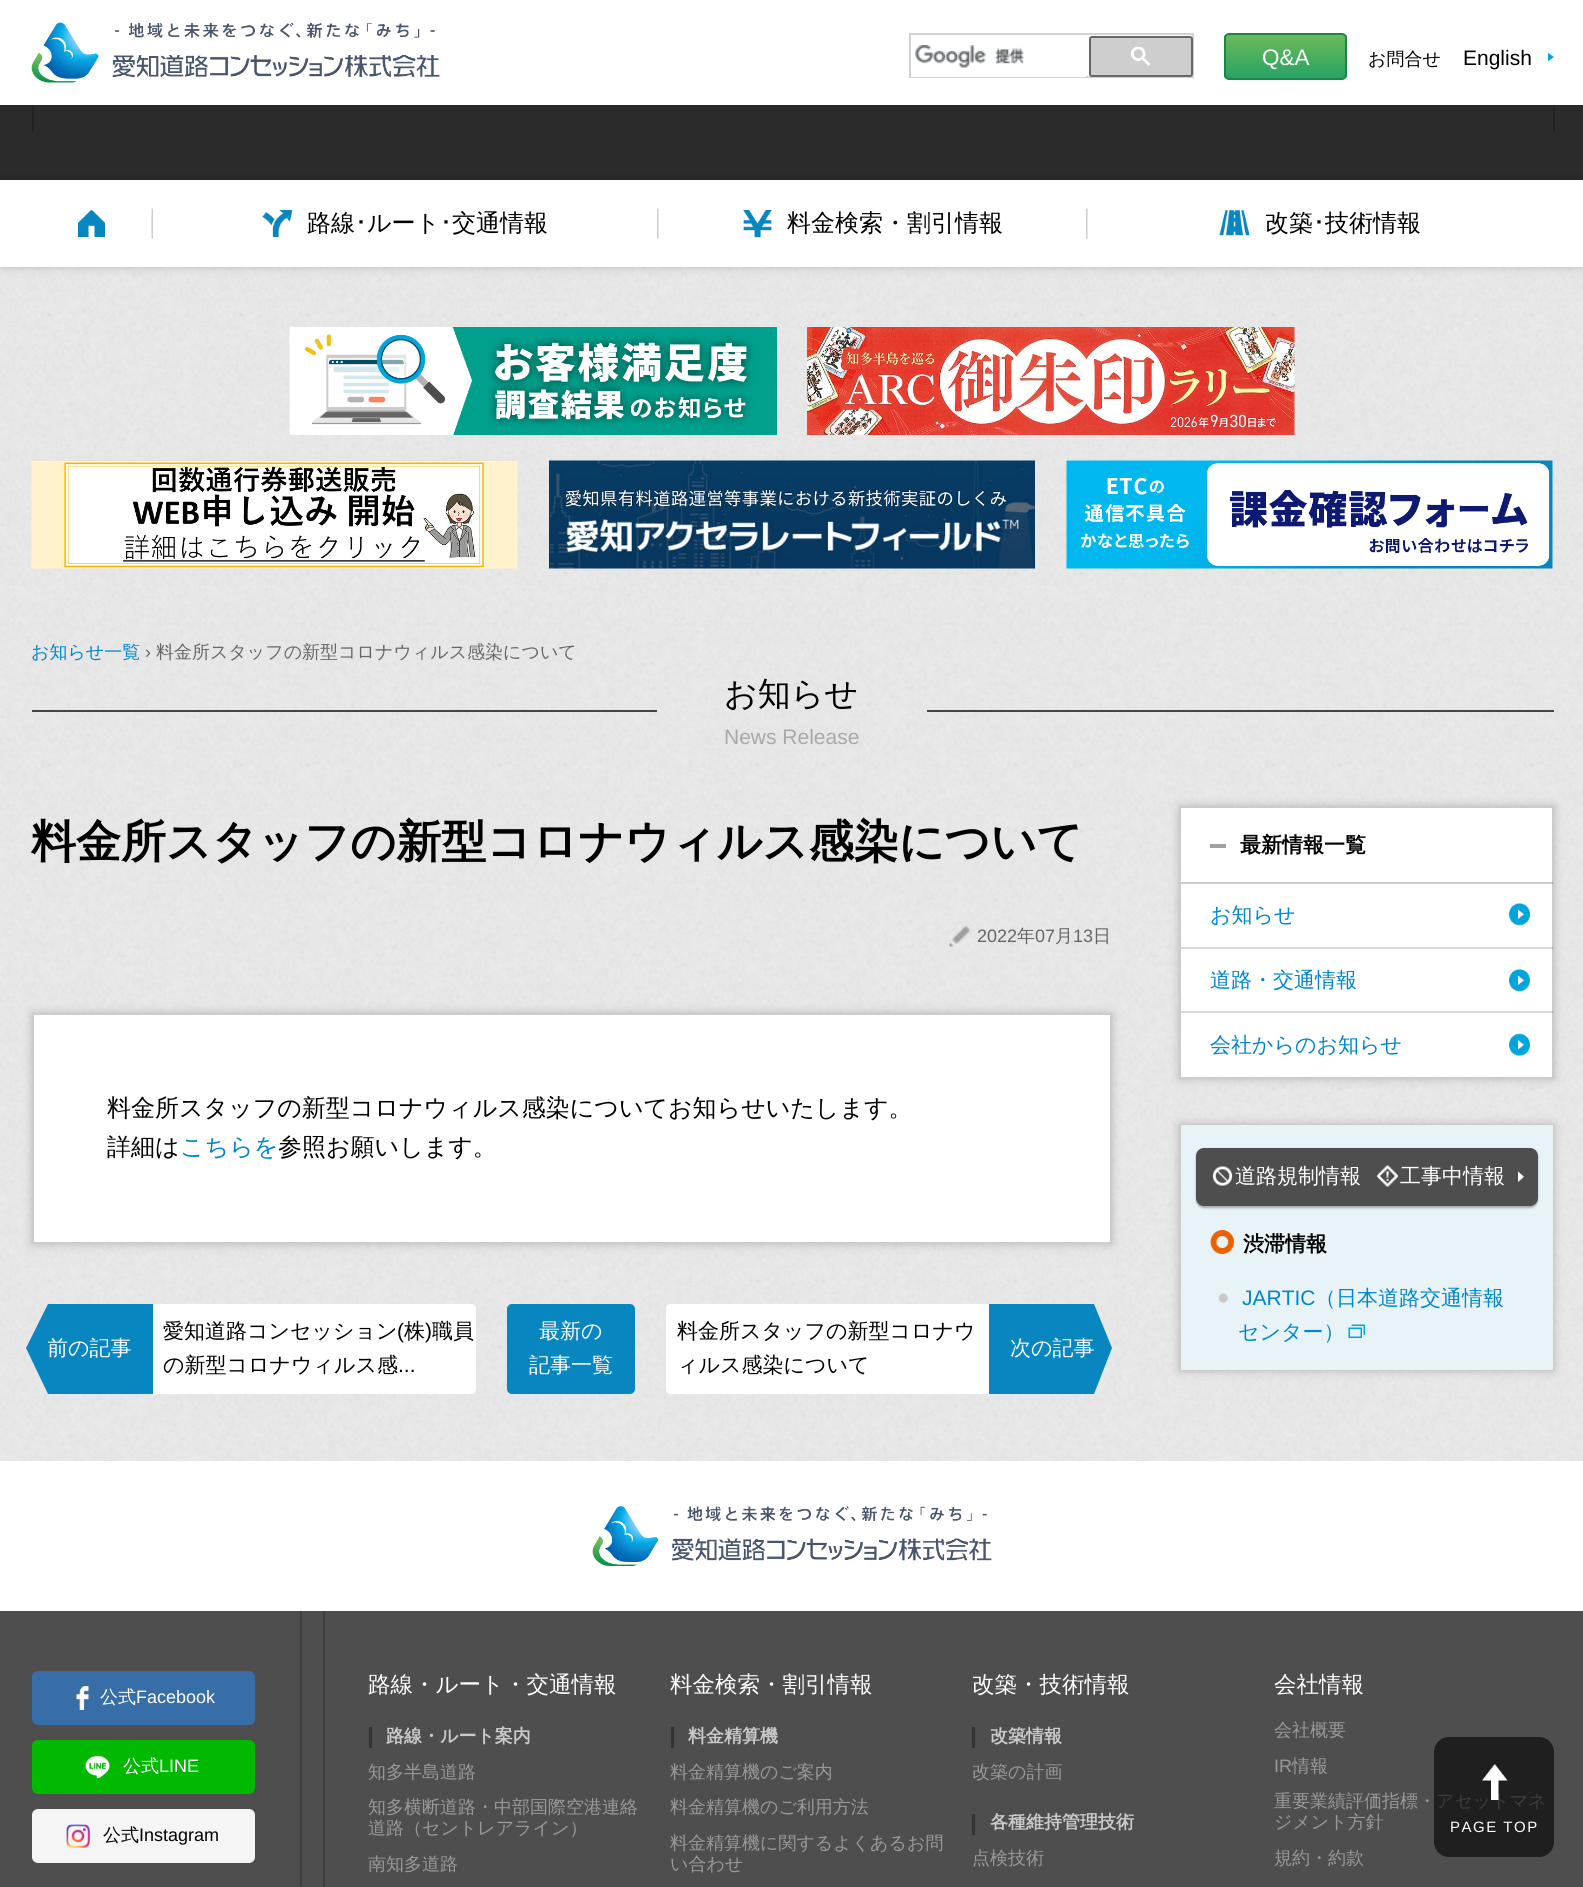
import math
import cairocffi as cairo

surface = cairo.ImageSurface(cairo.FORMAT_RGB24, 1583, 1887)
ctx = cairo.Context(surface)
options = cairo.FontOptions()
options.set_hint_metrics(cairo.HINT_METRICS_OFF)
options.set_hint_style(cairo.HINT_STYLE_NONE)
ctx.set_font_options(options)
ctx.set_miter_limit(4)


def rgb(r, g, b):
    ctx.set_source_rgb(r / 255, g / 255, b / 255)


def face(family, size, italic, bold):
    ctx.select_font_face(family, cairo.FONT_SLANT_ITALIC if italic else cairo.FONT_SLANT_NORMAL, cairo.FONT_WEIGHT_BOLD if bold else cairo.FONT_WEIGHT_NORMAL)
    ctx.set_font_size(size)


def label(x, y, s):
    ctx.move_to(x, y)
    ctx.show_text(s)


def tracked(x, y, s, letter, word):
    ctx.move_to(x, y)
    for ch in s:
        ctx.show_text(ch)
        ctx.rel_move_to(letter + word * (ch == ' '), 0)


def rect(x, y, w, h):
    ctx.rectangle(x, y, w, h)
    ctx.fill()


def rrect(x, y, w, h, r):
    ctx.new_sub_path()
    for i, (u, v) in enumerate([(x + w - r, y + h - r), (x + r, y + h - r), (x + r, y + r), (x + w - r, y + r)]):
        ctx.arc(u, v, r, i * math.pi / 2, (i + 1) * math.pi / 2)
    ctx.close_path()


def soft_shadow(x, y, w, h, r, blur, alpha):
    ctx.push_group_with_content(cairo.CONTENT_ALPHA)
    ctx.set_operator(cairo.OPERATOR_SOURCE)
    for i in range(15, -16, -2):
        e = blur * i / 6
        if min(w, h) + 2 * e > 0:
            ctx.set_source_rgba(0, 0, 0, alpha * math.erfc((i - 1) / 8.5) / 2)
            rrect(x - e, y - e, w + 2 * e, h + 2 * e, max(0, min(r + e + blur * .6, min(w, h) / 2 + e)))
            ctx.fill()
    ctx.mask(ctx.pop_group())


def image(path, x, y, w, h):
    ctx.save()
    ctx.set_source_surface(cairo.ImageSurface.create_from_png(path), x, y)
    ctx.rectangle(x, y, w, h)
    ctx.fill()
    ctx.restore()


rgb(255, 255, 255)
ctx.paint()
image('image0.png', 0, 267, 1583, 1194)
image('image1.png', 31, 22, 409, 61)
ctx.rectangle(910, 34, 283, 43)
rgb(210, 210, 210)
ctx.stroke()
rgb(255, 255, 255)
rect(911, 76, 175, 1)
image('image2.png', 915, 45, 109, 23)
rgb(206, 206, 206)
rrect(1090, 37, 102, 39, 2)
ctx.fill_preserve()
rgb(102, 102, 102)
ctx.stroke()
image('image3.png', 1131, 47, 20, 19)
ctx.save()
rrect(1224, 33, 123, 47, 5)
ctx.clip()
gradient = cairo.LinearGradient(1286, 34, 1286, 78)
gradient.add_color_stop_rgba(0, 0.424, 0.733, 0.353, 1)
gradient.add_color_stop_rgba(1, 0.157, 0.639, 0.392, 1)
ctx.set_source(gradient)
rect(1224, 35, 123, 43)
ctx.restore()
rrect(1225, 34, 121, 45, 4)
rgb(25, 134, 78)
ctx.stroke()
face('Liberation Sans', 22.5, 0, 0)
rgb(255, 255, 255)
label(1262, 65, 'Q&A')
face('WenQuanYi Zen Hei Medium', 18, 0, 0)
rgb(0, 0, 0)
label(1368, 65, 'お問合せ')
face('Liberation Sans', 21, 0, 0)
label(1463, 65, 'English')
image('image4.png', 1548, 52, 6, 10)
rgb(43, 43, 43)
rect(0, 105, 1583, 75)
rgb(34, 34, 34)
rect(1553, 105, 2, 27)
rect(32, 105, 2, 27)
rgb(0, 0, 0)
soft_shadow(0, 180, 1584, 87, 0, 4.5, 0.2)
rgb(255, 255, 255)
rect(0, 180, 1583, 87)
image('image5.png', 151, 208, 2, 31)
image('image6.png', 78, 210, 27, 27)
image('image7.png', 657, 208, 2, 31)
image('image8.png', 262, 210, 31, 27)
face('WenQuanYi Zen Hei Medium', 24, 0, 0)
rgb(0, 0, 0)
label(307, 231, '路線')
face('IPAPGothic', 24, 0, 0)
label(355, 231, '･')
face('WenQuanYi Zen Hei Medium', 24, 0, 0)
label(367, 231, 'ルート')
face('IPAPGothic', 24, 0, 0)
label(440, 231, '･')
face('WenQuanYi Zen Hei Medium', 24, 0, 0)
label(452, 231, '交通情報')
image('image7.png', 1086, 208, 2, 31)
image('image9.png', 743, 210, 29, 27)
label(787, 231, '料金検索・割引情報')
image('image10.png', 1219, 210, 31, 26)
label(1265, 231, '改築')
face('IPAPGothic', 24, 0, 0)
label(1313, 231, '･')
face('WenQuanYi Zen Hei Medium', 24, 0, 0)
label(1325, 231, '技術情報')
image('image11.png', 289, 327, 488, 108)
image('image12.png', 807, 327, 488, 108)
image('image13.png', 31, 460, 487, 109)
image('image14.png', 549, 460, 486, 109)
image('image15.png', 1066, 460, 487, 109)
face('WenQuanYi Zen Hei Medium', 18, 0, 0)
rgb(0, 134, 204)
label(31, 658, 'お知らせ一覧')
face('Liberation Sans', 18, 0, 0)
rgb(102, 102, 102)
label(145, 658, '›')
face('WenQuanYi Zen Hei Medium', 18, 0, 0)
label(156, 658, '料金所スタッフの新型コロナウィルス感染について')
rgb(68, 68, 68)
rect(32, 710, 625, 2)
face('WenQuanYi Zen Hei Medium', 33, 0, 0)
rgb(0, 0, 0)
label(724, 705, 'お知らせ')
face('Liberation Sans', 21, 0, 0)
rgb(168, 168, 168)
label(724, 744, 'News Release')
rgb(68, 68, 68)
rect(927, 710, 627, 2)
face('WenQuanYi Zen Hei', 45, 0, 1)
rgb(0, 0, 0)
label(31, 857, '料金所スタッフの新型コロナウィルス感染について')
image('image16.png', 949, 925, 22, 22)
face('Liberation Sans', 18, 0, 0)
rgb(102, 102, 102)
label(977, 942, '2022')
face('WenQuanYi Zen Hei Medium', 18, 0, 0)
label(1017, 942, '年')
face('Liberation Sans', 18, 0, 0)
label(1035, 942, '07')
face('WenQuanYi Zen Hei Medium', 18, 0, 0)
label(1055, 942, '月')
face('Liberation Sans', 18, 0, 0)
label(1073, 942, '13')
face('WenQuanYi Zen Hei Medium', 18, 0, 0)
label(1093, 942, '日')
rgb(0, 0, 0)
soft_shadow(32, 1013, 1080, 231, 0, 4.5, 0.2)
rgb(255, 255, 255)
ctx.rectangle(33, 1014, 1078, 229)
ctx.fill_preserve()
rgb(204, 204, 204)
ctx.stroke()
face('WenQuanYi Zen Hei Medium', 24, 0, 0)
rgb(0, 0, 0)
label(107, 1116, '料金所スタッフの新型コロナウィルス感染についてお知らせいたします。')
label(107, 1155, '詳細は')
rgb(0, 134, 204)
label(180, 1155, 'こちらを')
rgb(0, 0, 0)
label(278, 1155, '参照お願いします。')
rgb(7, 134, 192)
rect(48, 1304, 105, 90)
face('WenQuanYi Zen Hei Medium', 21, 0, 0)
rgb(255, 255, 255)
label(47, 1355, '前の記事')
rgb(7, 134, 192)
ctx.new_path()
ctx.move_to(48, 1304)
ctx.line_to(48, 1394)
ctx.line_to(26, 1348)
ctx.close_path()
ctx.fill()
rgb(255, 255, 255)
ctx.new_path()
ctx.move_to(153, 1304)
ctx.line_to(471, 1304)
ctx.curve_to(474, 1304, 476, 1306, 476, 1309)
ctx.line_to(476, 1389)
ctx.curve_to(476, 1392, 474, 1394, 471, 1394)
ctx.line_to(153, 1394)
ctx.close_path()
ctx.fill()
rgb(0, 0, 0)
label(163, 1338, '愛知道路コンセッション')
face('Liberation Sans', 21, 0, 0)
label(397, 1338, '(')
face('WenQuanYi Zen Hei Medium', 21, 0, 0)
label(404, 1338, '株')
face('Liberation Sans', 21, 0, 0)
label(425, 1338, ')')
face('WenQuanYi Zen Hei Medium', 21, 0, 0)
label(432, 1338, '職員')
label(163, 1372, 'の新型コロナウィルス感')
face('Liberation Sans', 21, 0, 0)
label(398, 1372, '...')
rgb(7, 134, 192)
rrect(507, 1304, 128, 90, 5)
ctx.fill()
face('WenQuanYi Zen Hei Medium', 21, 0, 0)
rgb(255, 255, 255)
label(539, 1338, '最新の')
label(529, 1372, '記事一覧')
ctx.new_path()
ctx.move_to(671, 1304)
ctx.line_to(989, 1304)
ctx.line_to(989, 1394)
ctx.line_to(671, 1394)
ctx.curve_to(668, 1394, 666, 1392, 666, 1389)
ctx.line_to(666, 1309)
ctx.curve_to(666, 1306, 668, 1304, 671, 1304)
ctx.close_path()
ctx.fill()
rgb(0, 0, 0)
label(677, 1338, '料金所スタッフの新型コロナウ')
label(677, 1372, 'ィルス感染について')
rgb(7, 134, 192)
rect(989, 1304, 105, 90)
rgb(255, 255, 255)
label(1010, 1355, '次の記事')
rgb(7, 134, 192)
ctx.new_path()
ctx.move_to(1094, 1394)
ctx.line_to(1094, 1304)
ctx.line_to(1112, 1348)
ctx.close_path()
ctx.fill()
rgb(0, 0, 0)
soft_shadow(1179, 806, 375, 273, 0, 4.5, 0.2)
rgb(255, 255, 255)
ctx.rectangle(1180, 807, 373, 271)
ctx.fill_preserve()
rgb(204, 204, 204)
ctx.stroke()
rgb(160, 160, 160)
rect(1210, 844, 16, 4)
ctx.set_source_rgba(0, 0, 0, 0.2)
rect(1181, 882, 372, 2)
face('WenQuanYi Zen Hei', 21, 0, 1)
rgb(0, 0, 0)
label(1240, 852, '最新情報一覧')
ctx.set_source_rgba(0, 0, 0, 0.15)
rect(1181, 947, 372, 2)
image('image17.png', 1509, 903, 21, 23)
face('WenQuanYi Zen Hei Medium', 21, 0, 0)
rgb(0, 134, 204)
label(1210, 922, 'お知らせ')
ctx.set_source_rgba(0, 0, 0, 0.15)
rect(1181, 1011, 372, 2)
image('image17.png', 1509, 969, 21, 23)
rgb(0, 134, 204)
label(1210, 987, '道路・交通情報')
image('image18.png', 1509, 1033, 21, 23)
label(1210, 1052, '会社からのお知らせ')
rgb(0, 0, 0)
soft_shadow(1179, 1124, 375, 247, 0, 4.5, 0.2)
ctx.rectangle(1180, 1125, 373, 245)
rgb(204, 204, 204)
ctx.stroke()
rgb(232, 243, 248)
rect(1181, 1125, 372, 245)
rgb(0, 0, 0)
soft_shadow(1196, 1149, 342, 59, 8, 1, 0.3)
rgb(78, 78, 78)
rrect(1196, 1148, 342, 58, 8)
ctx.fill()
image('image19.png', 1518, 1171, 6, 11)
image('image20.png', 1213, 1166, 20, 20)
rgb(255, 255, 255)
label(1235, 1183, '道路規制情報')
image('image21.png', 1377, 1165, 21, 22)
label(1400, 1183, '工事中情報')
image('image22.png', 1210, 1230, 25, 24)
face('WenQuanYi Zen Hei', 21, 0, 1)
rgb(0, 0, 0)
label(1243, 1251, '渋滞情報')
face('Liberation Sans', 21, 0, 0)
rgb(201, 201, 201)
label(1217, 1304, '●')
rgb(0, 134, 204)
label(1242, 1305, 'JARTIC')
face('WenQuanYi Zen Hei Medium', 21, 0, 0)
label(1315, 1305, '（日本道路交通情報')
label(1238, 1339, 'センター）')
image('image23.png', 1348, 1324, 17, 14)
rgb(78, 78, 78)
rect(0, 1611, 1583, 276)
image('image24.png', 592, 1506, 400, 60)
rgb(62, 62, 62)
rect(300, 1611, 2, 276)
rgb(55, 110, 168)
rrect(32, 1671, 223, 54, 6)
ctx.fill()
image('image25.png', 76, 1686, 13, 24)
face('WenQuanYi Zen Hei Medium', 18, 0, 0)
rgb(255, 255, 255)
label(100, 1703, '公式')
face('Liberation Sans', 18, 0, 0)
label(136, 1703, 'Facebook')
rgb(0, 185, 0)
rrect(32, 1740, 223, 54, 6)
ctx.fill()
image('image26.png', 85, 1755, 25, 24)
face('WenQuanYi Zen Hei Medium', 18, 0, 0)
rgb(255, 255, 255)
label(123, 1772, '公式')
face('Liberation Sans', 18, 0, 0)
label(159, 1772, 'LINE')
rgb(245, 245, 245)
rrect(32, 1809, 223, 54, 6)
ctx.fill()
image('image27.png', 66, 1824, 24, 24)
face('WenQuanYi Zen Hei Medium', 18, 0, 0)
rgb(0, 0, 0)
label(103, 1841, '公式')
face('Liberation Sans', 18, 0, 0)
label(139, 1841, 'Instagram')
rgb(62, 62, 62)
rect(323, 1611, 2, 276)
face('WenQuanYi Zen Hei Medium', 22.5, 0, 0)
rgb(255, 255, 255)
label(368, 1692, '路線・ルート・交通情報')
rgb(51, 51, 51)
rect(369, 1727, 3, 21)
face('WenQuanYi Zen Hei', 18, 0, 1)
rgb(201, 201, 201)
label(386, 1742, '路線・ルート案内')
face('WenQuanYi Zen Hei Medium', 18, 0, 0)
rgb(153, 153, 153)
label(368, 1778, '知多半島道路')
label(368, 1813, '知多横断道路・中部国際空港連絡')
label(368, 1834, '道路（セントレアライン）')
label(368, 1870, '南知多道路')
face('WenQuanYi Zen Hei Medium', 22.5, 0, 0)
rgb(255, 255, 255)
label(670, 1692, '料金検索・割引情報')
rgb(51, 51, 51)
rect(671, 1727, 3, 21)
face('WenQuanYi Zen Hei', 18, 0, 1)
rgb(201, 201, 201)
label(688, 1742, '料金精算機')
face('WenQuanYi Zen Hei Medium', 18, 0, 0)
rgb(153, 153, 153)
label(670, 1778, '料金精算機のご案内')
label(670, 1813, '料金精算機のご利用方法')
label(670, 1849, '料金精算機に関するよくあるお問')
label(670, 1870, 'い合わせ')
face('WenQuanYi Zen Hei Medium', 22.5, 0, 0)
rgb(255, 255, 255)
label(972, 1692, '改築・技術情報')
rgb(51, 51, 51)
rect(972, 1727, 3, 21)
face('WenQuanYi Zen Hei', 18, 0, 1)
rgb(201, 201, 201)
label(990, 1742, '改築情報')
face('WenQuanYi Zen Hei Medium', 18, 0, 0)
rgb(153, 153, 153)
label(972, 1778, '改築の計画')
rgb(51, 51, 51)
rect(972, 1814, 3, 21)
face('WenQuanYi Zen Hei', 18, 0, 1)
rgb(201, 201, 201)
label(990, 1828, '各種維持管理技術')
face('WenQuanYi Zen Hei Medium', 18, 0, 0)
rgb(153, 153, 153)
label(972, 1864, '点検技術')
face('WenQuanYi Zen Hei Medium', 22.5, 0, 0)
rgb(255, 255, 255)
label(1274, 1692, '会社情報')
face('WenQuanYi Zen Hei Medium', 18, 0, 0)
rgb(153, 153, 153)
label(1274, 1736, '会社概要')
face('Liberation Sans', 18, 0, 0)
label(1274, 1772, 'IR')
face('WenQuanYi Zen Hei Medium', 18, 0, 0)
label(1292, 1772, '情報')
label(1274, 1807, '重要業績評価指標・アセットマネ')
label(1274, 1828, 'ジメント方針')
label(1274, 1864, '規約・約款')
ctx.set_source_rgba(0, 0, 0, 0.6)
rrect(1434, 1737, 120, 120, 15)
ctx.fill()
image('image28.png', 1482, 1764, 26, 36)
face('Liberation Sans', 15, 0, 0)
rgb(255, 255, 255)
tracked(1450, 1832, 'PAGE TOP', 1.5, 0)
surface.write_to_png('render.png')
